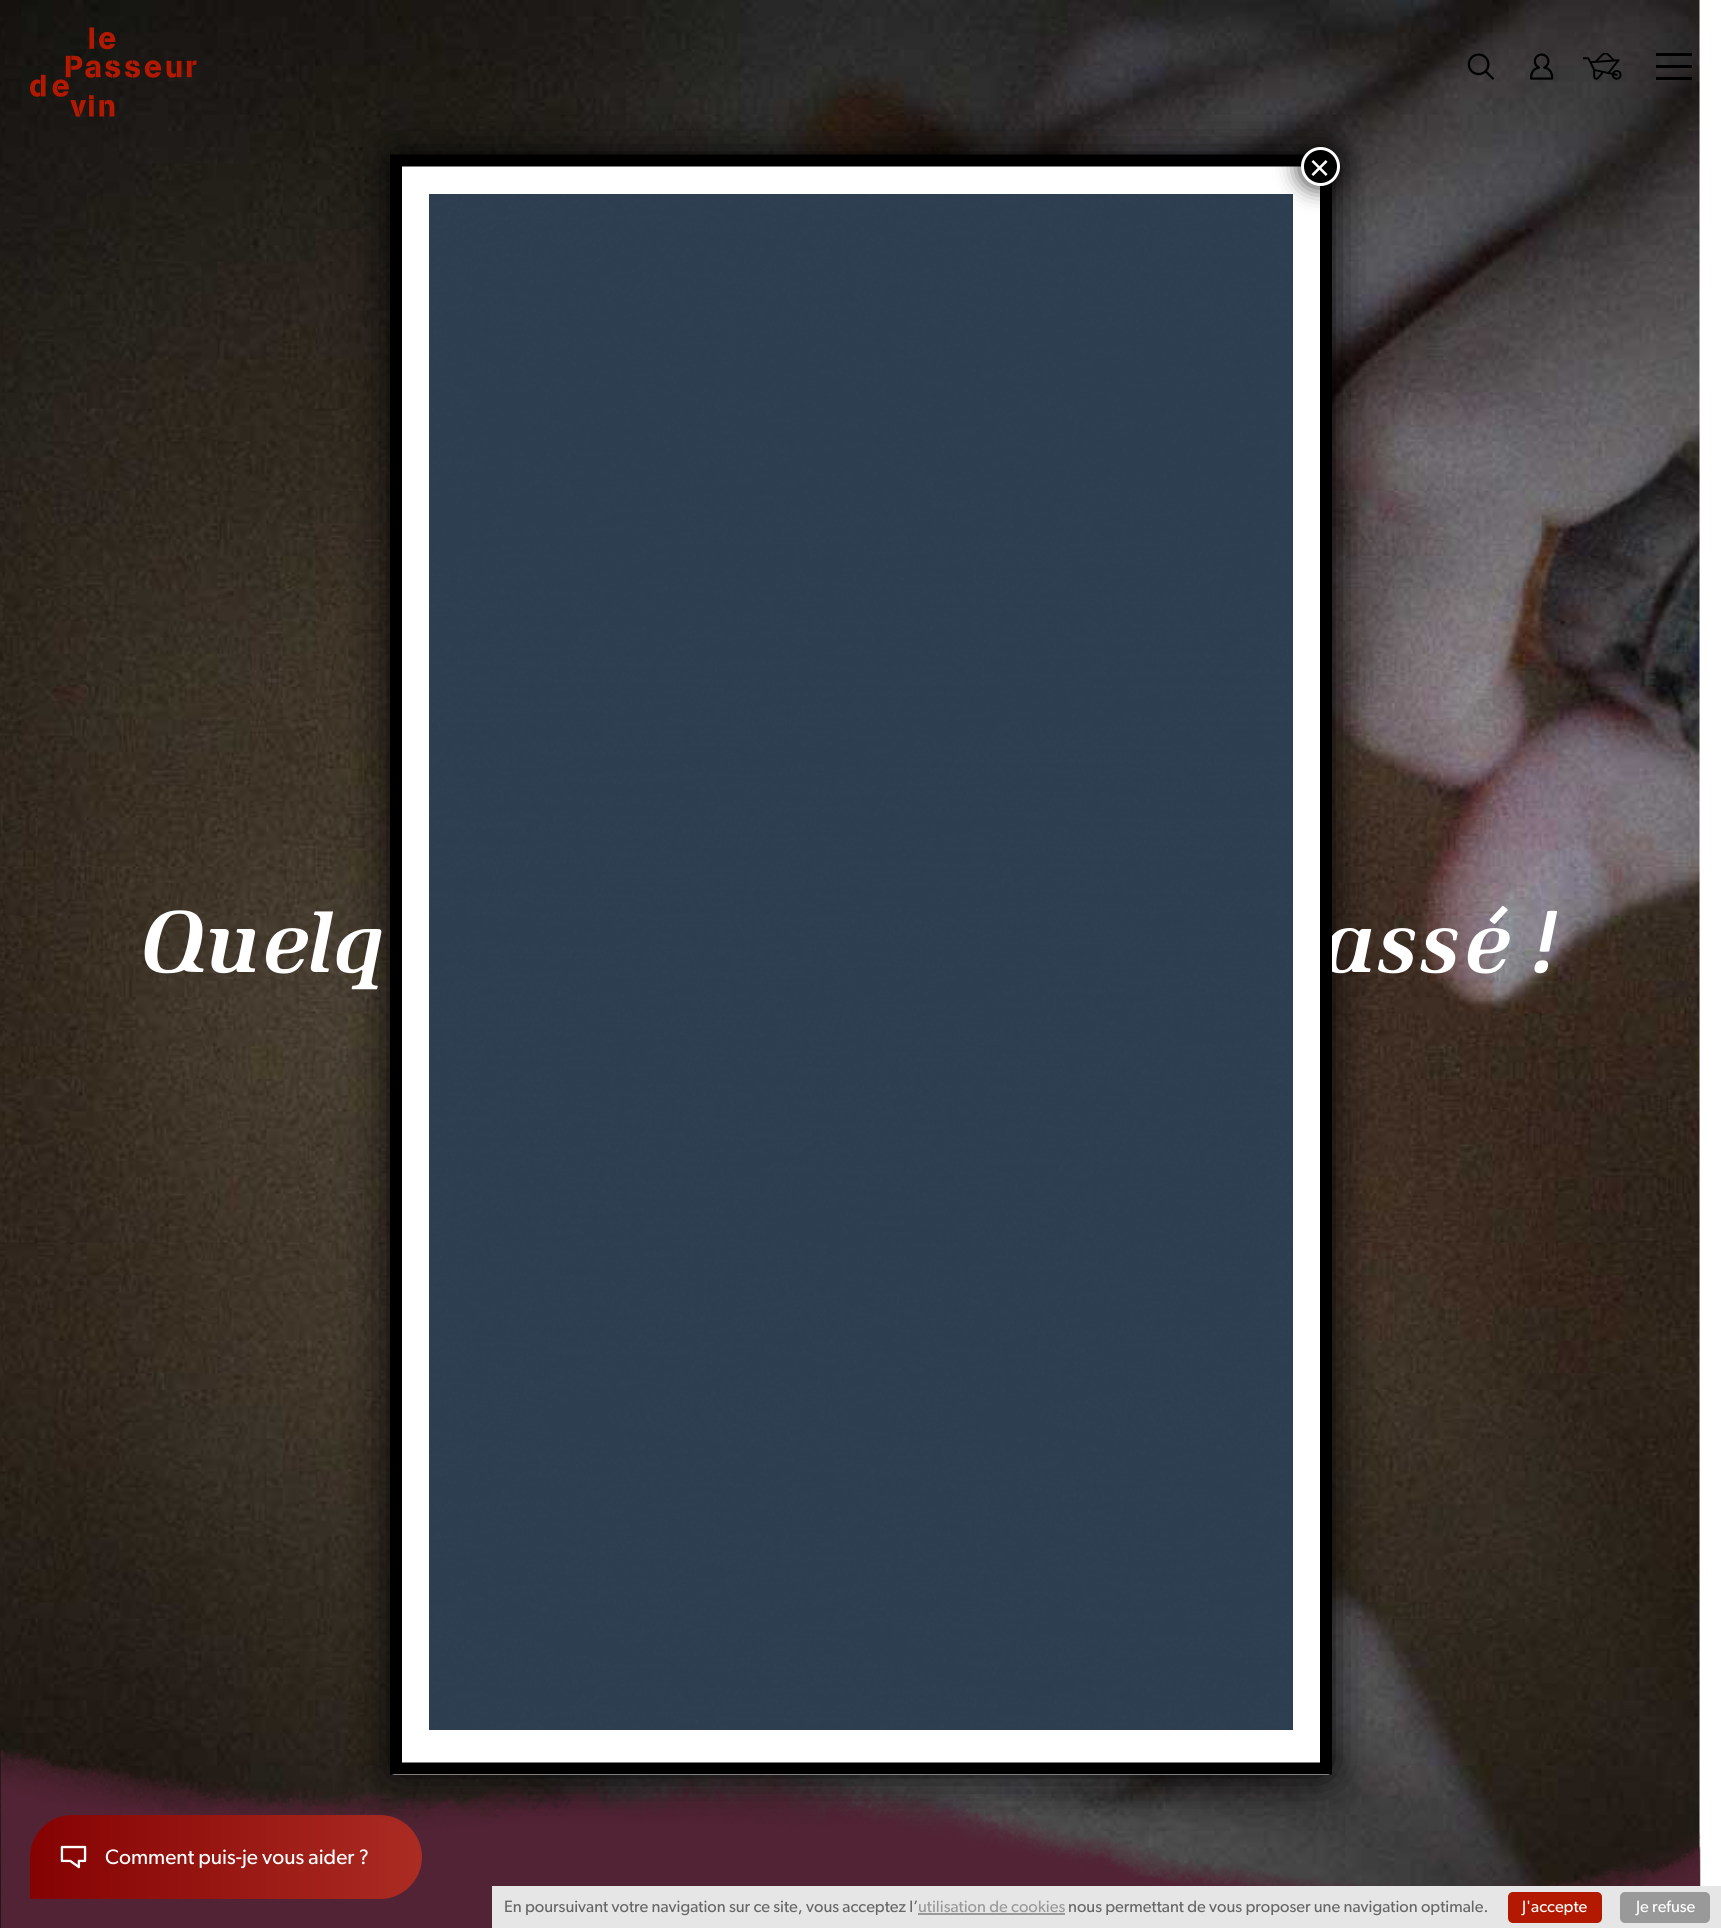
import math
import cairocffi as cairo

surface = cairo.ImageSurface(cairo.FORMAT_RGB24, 1721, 1928)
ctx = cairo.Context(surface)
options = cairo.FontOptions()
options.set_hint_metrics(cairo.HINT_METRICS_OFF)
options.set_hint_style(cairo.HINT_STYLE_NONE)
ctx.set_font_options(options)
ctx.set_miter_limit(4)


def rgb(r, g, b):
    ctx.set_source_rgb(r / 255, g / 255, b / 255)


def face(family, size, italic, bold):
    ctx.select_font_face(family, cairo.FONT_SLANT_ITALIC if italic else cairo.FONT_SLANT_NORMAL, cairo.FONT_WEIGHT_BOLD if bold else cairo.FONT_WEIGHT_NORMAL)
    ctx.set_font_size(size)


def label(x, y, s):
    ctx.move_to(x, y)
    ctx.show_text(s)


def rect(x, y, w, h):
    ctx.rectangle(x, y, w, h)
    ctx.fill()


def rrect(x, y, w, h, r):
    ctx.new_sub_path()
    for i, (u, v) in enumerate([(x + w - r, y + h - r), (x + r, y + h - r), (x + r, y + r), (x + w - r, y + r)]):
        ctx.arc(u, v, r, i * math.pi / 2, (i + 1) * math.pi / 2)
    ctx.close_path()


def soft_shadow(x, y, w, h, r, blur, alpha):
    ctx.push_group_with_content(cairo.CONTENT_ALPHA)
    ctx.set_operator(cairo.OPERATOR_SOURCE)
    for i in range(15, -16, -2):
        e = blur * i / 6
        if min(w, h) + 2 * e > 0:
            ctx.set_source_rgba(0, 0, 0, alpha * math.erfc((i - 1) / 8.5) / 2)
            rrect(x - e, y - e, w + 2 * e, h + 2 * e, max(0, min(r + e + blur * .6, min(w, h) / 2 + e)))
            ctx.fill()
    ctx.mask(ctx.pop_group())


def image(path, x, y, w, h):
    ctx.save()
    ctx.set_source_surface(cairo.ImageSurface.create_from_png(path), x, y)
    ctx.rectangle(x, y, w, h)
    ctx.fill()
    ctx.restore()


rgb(255, 255, 255)
ctx.paint()
image('image5.png', 0, 0, 1700, 1928)
image('image7.png', 0, 1749, 1701, 179)
gradient = cairo.LinearGradient(30, 1857, 422, 1857)
gradient.add_color_stop_rgba(0, 0.522, 0.008, 0.008, 1)
gradient.add_color_stop_rgba(1, 0.671, 0.173, 0.137, 1)
ctx.set_source(gradient)
ctx.new_path()
ctx.move_to(72, 1815)
ctx.line_to(380, 1815)
ctx.curve_to(403, 1815, 422, 1834, 422, 1857)
ctx.curve_to(422, 1880, 403, 1899, 380, 1899)
ctx.line_to(30, 1899)
ctx.line_to(30, 1857)
ctx.curve_to(30, 1834, 49, 1815, 72, 1815)
ctx.close_path()
ctx.fill()
rgb(2, 2, 2)
soft_shadow(390, 155, 942, 1620, 5, 22.5, 1)
rgb(255, 255, 255)
rrect(390, 155, 942, 1620, 5)
ctx.fill()
face('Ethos', 90, 1, 1)
label(1324, 972, 'assé !')
ctx.new_path()
ctx.move_to(396, 160.5)
ctx.line_to(1326, 160.5)
ctx.line_to(1326, 1768.5)
ctx.line_to(396, 1768.5)
ctx.close_path()
rgb(0, 0, 0)
ctx.set_line_width(12)
ctx.stroke()
image('image0.png', 429, 194, 864, 1536)
rgb(2, 2, 2)
soft_shadow(1299, 146, 42, 42, 21, 11, 0.75)
rgb(0, 0, 0)
ctx.arc(1320.5, 166.5, 18, 0, 2 * math.pi)
ctx.fill_preserve()
rgb(255, 255, 255)
ctx.set_line_width(3)
ctx.stroke()
face('Liberation Sans', 36, 0, 0)
label(1309, 180, '×')
image('image1.png', 30, 27, 167, 90)
image('image2.png', 1467, 53, 27, 27)
image('image3.png', 1530, 53, 24, 27)
image('image4.png', 1583, 53, 39, 27)
rgb(0, 0, 0)
rect(1656, 53, 36, 3)
rect(1656, 65, 36, 3)
rect(1656, 77, 36, 3)
face('Ethos', 90, 1, 1)
rgb(255, 255, 255)
label(141, 972, 'Quelq')
image('image6.png', 60, 1845, 27, 24)
face('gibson', 21, 0, 0)
label(105, 1864, 'Comment puis-je vous aider ?')
rgb(230, 230, 230)
rect(492, 1886, 1229, 42)
face('gibson', 16.5, 0, 0)
rgb(102, 102, 102)
label(504, 1912, 'En poursuivant votre navigation sur ce site, vous acceptez l’')
rgb(153, 153, 153)
label(918, 1912, 'utilisation de cookies')
rect(918, 1913, 147, 2)
rgb(102, 102, 102)
label(1068, 1912, 'nous permettant de vous proposer une navigation optimale.')
rgb(179, 25, 0)
rrect(1508, 1892, 94, 31, 5)
ctx.fill()
rgb(255, 255, 255)
label(1522, 1912, 'J\'accepte')
rgb(153, 153, 153)
rrect(1620, 1892, 90, 31, 5)
ctx.fill()
rgb(255, 255, 255)
label(1636, 1912, 'Je refuse')
surface.write_to_png('render.png')
